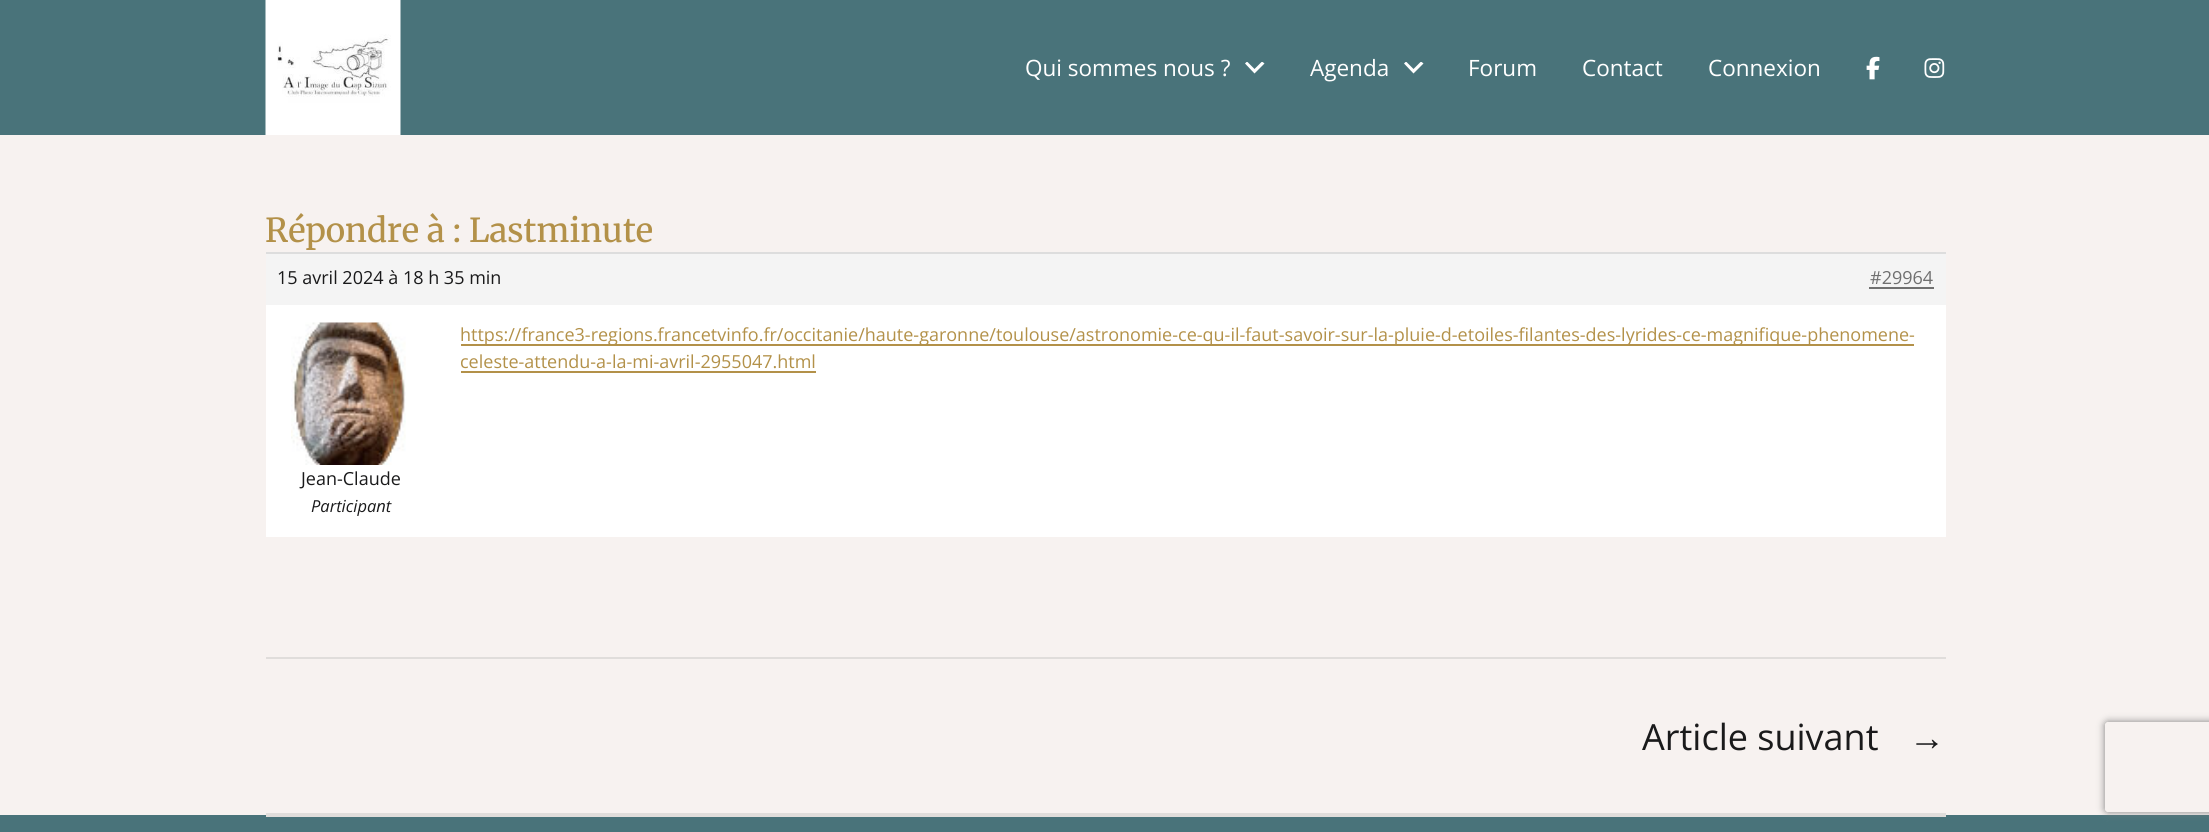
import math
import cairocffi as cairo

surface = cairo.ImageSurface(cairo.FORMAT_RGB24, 2209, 832)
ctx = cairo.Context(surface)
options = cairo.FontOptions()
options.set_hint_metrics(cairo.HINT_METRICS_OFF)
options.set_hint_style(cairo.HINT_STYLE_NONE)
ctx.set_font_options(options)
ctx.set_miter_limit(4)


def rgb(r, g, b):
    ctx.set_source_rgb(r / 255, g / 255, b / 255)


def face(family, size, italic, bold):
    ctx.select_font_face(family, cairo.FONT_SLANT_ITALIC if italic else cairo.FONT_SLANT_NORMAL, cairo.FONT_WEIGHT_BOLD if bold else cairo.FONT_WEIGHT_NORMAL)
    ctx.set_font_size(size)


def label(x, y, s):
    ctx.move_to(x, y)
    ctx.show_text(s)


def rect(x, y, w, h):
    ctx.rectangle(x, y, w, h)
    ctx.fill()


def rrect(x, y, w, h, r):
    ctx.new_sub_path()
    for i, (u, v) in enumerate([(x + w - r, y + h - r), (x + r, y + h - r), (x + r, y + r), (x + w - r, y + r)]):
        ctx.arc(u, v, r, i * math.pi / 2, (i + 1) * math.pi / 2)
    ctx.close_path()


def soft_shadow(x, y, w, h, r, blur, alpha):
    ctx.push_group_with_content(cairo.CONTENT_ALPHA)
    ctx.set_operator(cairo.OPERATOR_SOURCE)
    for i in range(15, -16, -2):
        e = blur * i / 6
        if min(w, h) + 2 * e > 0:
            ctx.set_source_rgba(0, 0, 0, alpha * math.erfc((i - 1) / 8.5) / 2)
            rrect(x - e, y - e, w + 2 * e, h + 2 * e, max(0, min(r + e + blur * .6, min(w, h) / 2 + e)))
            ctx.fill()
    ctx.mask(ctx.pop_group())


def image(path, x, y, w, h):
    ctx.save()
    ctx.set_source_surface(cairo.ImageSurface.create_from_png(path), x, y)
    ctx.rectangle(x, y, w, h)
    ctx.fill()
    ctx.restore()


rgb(247, 242, 240)
ctx.paint()
rgb(73, 115, 122)
rect(0, 0, 2209, 135)
image('image0.png', 265, 0, 136, 135)
face('Open Sans', 22.5, 0, 0)
rgb(255, 255, 255)
label(1025, 76, 'Qui sommes nous ?')
ctx.save()
ctx.rectangle(1245, 62, 20, 12)
ctx.clip()
ctx.set_fill_rule(cairo.FILL_RULE_EVEN_ODD)
ctx.new_path()
ctx.move_to(1254.5, 69)
ctx.line_to(1262, 61.5)
ctx.line_to(1264.5, 63.5)
ctx.line_to(1254.5, 73.5)
ctx.line_to(1245, 63.5)
ctx.line_to(1247, 61.5)
ctx.close_path()
ctx.fill()
ctx.restore()
label(1310, 76, 'Agenda')
ctx.save()
ctx.rectangle(1404, 62, 20, 12)
ctx.clip()
ctx.set_fill_rule(cairo.FILL_RULE_EVEN_ODD)
ctx.new_path()
ctx.move_to(1413.5, 69)
ctx.line_to(1421, 61.5)
ctx.line_to(1423.5, 63.5)
ctx.line_to(1413.5, 73.5)
ctx.line_to(1404, 63.5)
ctx.line_to(1406, 61.5)
ctx.close_path()
ctx.fill()
ctx.restore()
label(1468, 76, 'Forum')
label(1582, 76, 'Contact')
label(1708, 76, 'Connexion')
image('image1.png', 1866, 56, 14, 24)
image('image2.png', 1924, 58, 21, 20)
face('Merriweather Medium', 33, 0, 0)
rgb(179, 145, 73)
label(265, 242, 'Répondre à : Lastminute')
rgb(244, 244, 244)
rect(266, 254, 1680, 51)
rgb(221, 221, 221)
rect(266, 252, 1680, 2)
face('Open Sans', 18, 0, 0)
rgb(26, 26, 27)
label(277, 284, '15 avril 2024 à 18 h 35 min')
rgb(112, 112, 112)
label(1870, 284, '#29964')
rect(1869, 287, 65, 2)
rgb(255, 255, 255)
rect(266, 305, 1680, 232)
rgb(179, 145, 73)
rect(461, 344, 1453, 2)
label(460, 341, 'https://france3-regions.francetvinfo.fr/occitanie/haute-garonne/toulouse/astronomie-ce-qu-il-faut-savoir-sur-la-pluie-d-etoiles-filantes-des-lyrides-ce-magnifique-phenomene-')
label(460, 368, 'celeste-attendu-a-la-mi-avril-2955047.html')
rect(461, 371, 355, 2)
image('image3.png', 291, 322, 115, 143)
rgb(26, 26, 27)
label(301, 485, 'Jean-Claude')
face('Open Sans', 16.5, 1, 0)
label(311, 512, 'Participant')
rgb(224, 221, 219)
rect(266, 657, 1680, 2)
face('Open Sans', 36, 0, 0)
rgb(26, 26, 27)
label(1642, 750, 'Article suivant')
face('Liberation Serif', 36, 0, 0)
label(1909, 750, '→')
rgb(73, 115, 122)
rect(0, 815, 2209, 17)
ctx.save()
ctx.set_fill_rule(cairo.FILL_RULE_EVEN_ODD)
ctx.new_path()
ctx.move_to(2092, 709)
ctx.line_to(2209, 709)
ctx.line_to(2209, 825)
ctx.line_to(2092, 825)
ctx.close_path()
ctx.move_to(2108, 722)
ctx.line_to(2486, 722)
ctx.curve_to(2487.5, 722, 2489, 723.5, 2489, 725)
ctx.line_to(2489, 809)
ctx.curve_to(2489, 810.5, 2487.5, 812, 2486, 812)
ctx.line_to(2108, 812)
ctx.curve_to(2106.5, 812, 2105, 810.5, 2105, 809)
ctx.line_to(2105, 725)
ctx.curve_to(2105, 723.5, 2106.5, 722, 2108, 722)
ctx.close_path()
ctx.clip()
rgb(128, 128, 128)
soft_shadow(2105, 722, 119, 90, 3, 4, 1)
ctx.restore()
rgb(224, 221, 219)
rect(266, 813, 1680, 4)
surface.write_to_png('render.png')
